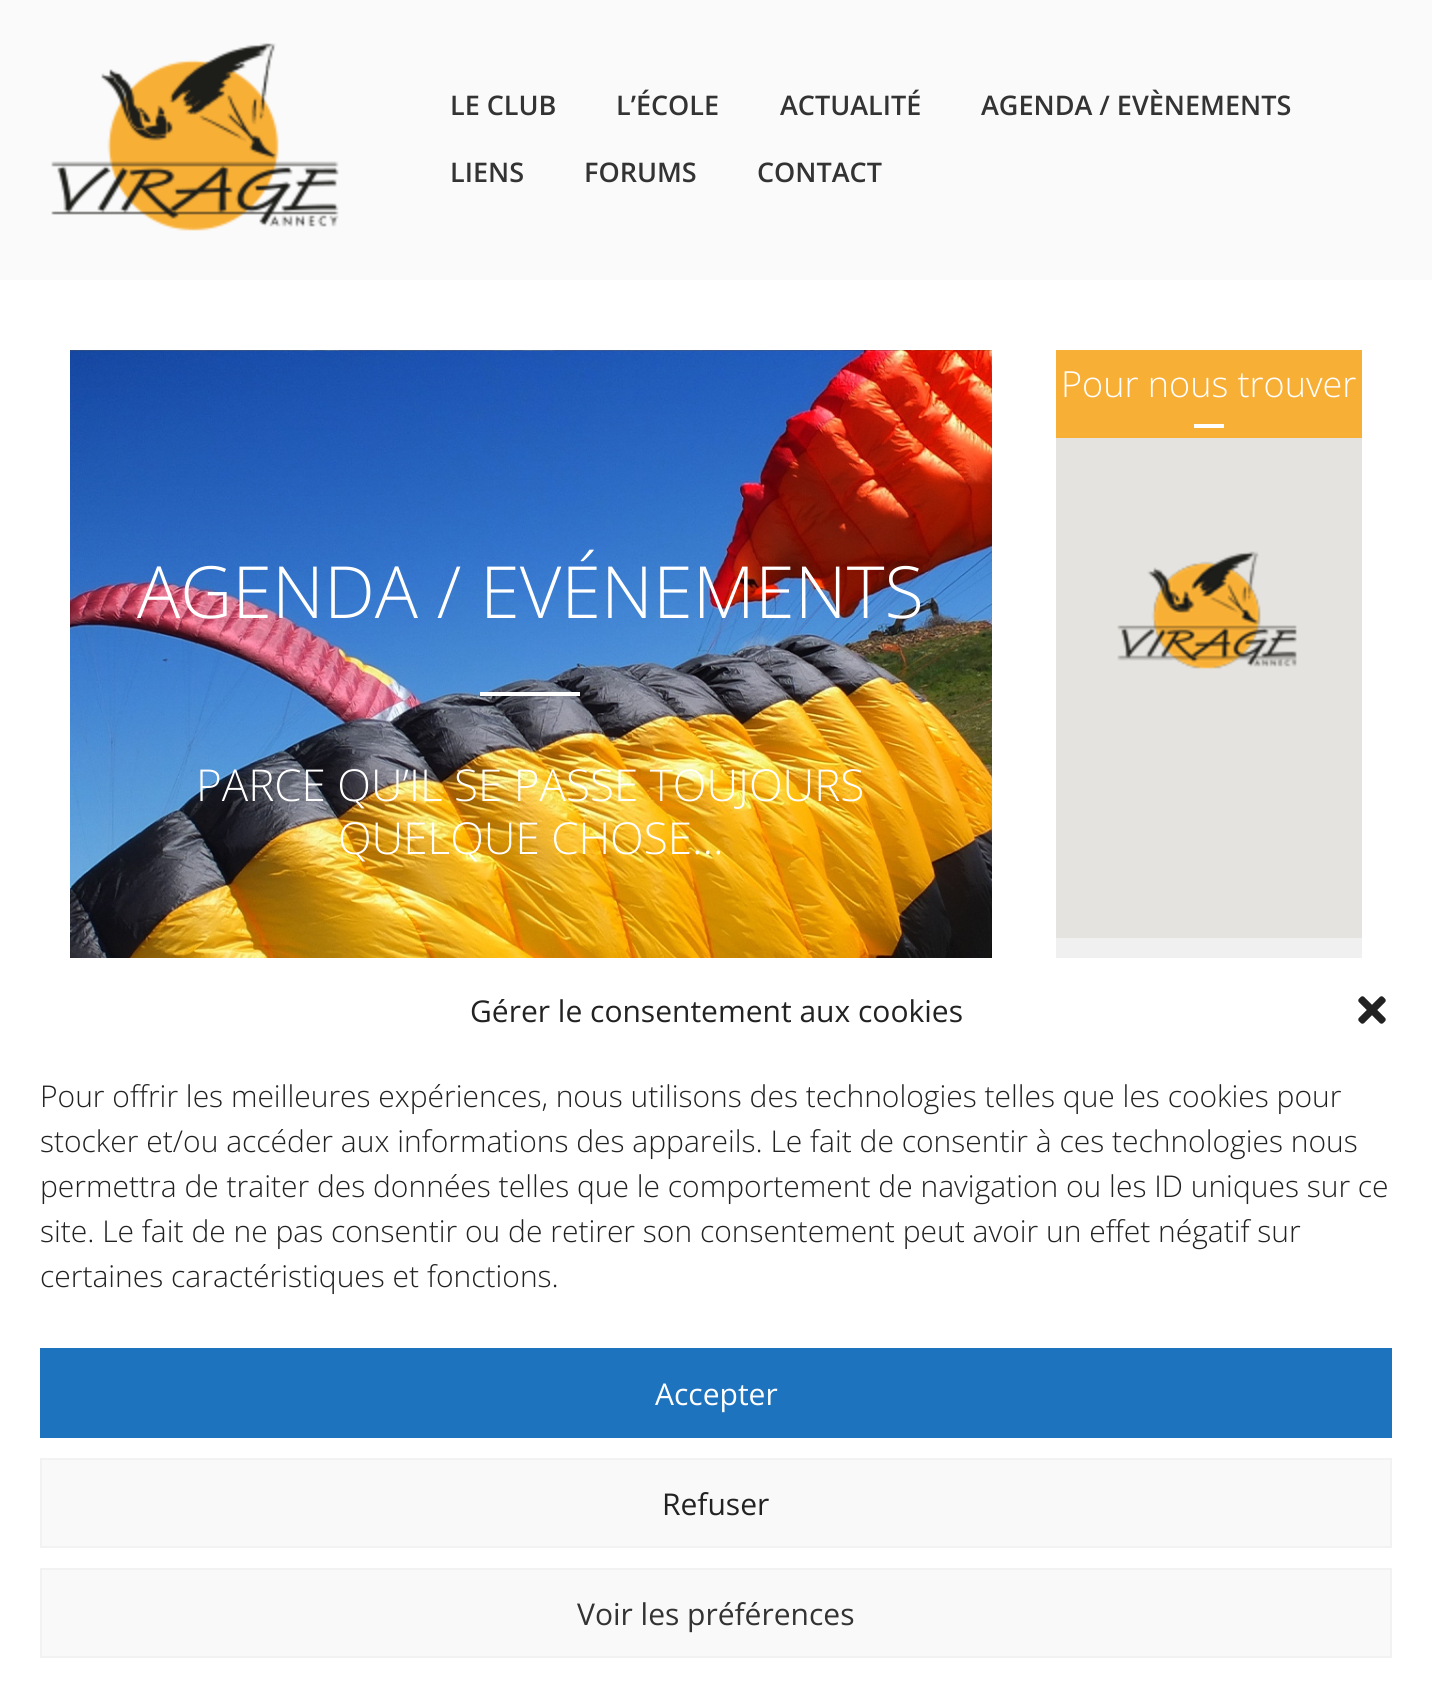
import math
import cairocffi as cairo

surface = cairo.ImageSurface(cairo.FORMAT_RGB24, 1432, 1707)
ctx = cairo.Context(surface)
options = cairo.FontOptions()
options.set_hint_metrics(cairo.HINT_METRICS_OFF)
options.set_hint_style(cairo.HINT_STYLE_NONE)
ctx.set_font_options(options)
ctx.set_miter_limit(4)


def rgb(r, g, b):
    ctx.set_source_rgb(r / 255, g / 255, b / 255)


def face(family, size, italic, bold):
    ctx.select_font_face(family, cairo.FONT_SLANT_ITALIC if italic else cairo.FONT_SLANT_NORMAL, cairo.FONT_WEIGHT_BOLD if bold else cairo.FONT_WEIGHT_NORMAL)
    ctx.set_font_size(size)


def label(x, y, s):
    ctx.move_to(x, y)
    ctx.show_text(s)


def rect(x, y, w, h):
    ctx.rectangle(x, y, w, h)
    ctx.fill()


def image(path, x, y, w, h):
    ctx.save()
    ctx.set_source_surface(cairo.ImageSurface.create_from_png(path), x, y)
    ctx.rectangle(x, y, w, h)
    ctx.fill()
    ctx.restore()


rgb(255, 255, 255)
ctx.paint()
rgb(250, 250, 250)
rect(0, 0, 1432, 280)
image('image0.png', 51, 43, 288, 188)
face('Open Sans SemiBold', 27, 0, 0)
rgb(51, 51, 51)
label(450, 115, 'LE CLUB')
label(616, 115, 'L’ÉCOLE')
label(780, 115, 'ACTUALITÉ')
label(981, 115, 'AGENDA / EVÈNEMENTS')
label(450, 182, 'LIENS')
label(584, 182, 'FORUMS')
label(757, 182, 'CONTACT')
rgb(240, 240, 240)
rect(1056, 938, 306, 20)
rgb(248, 175, 54)
rect(1056, 350, 306, 88)
face('Open Sans Light', 36, 0, 0)
rgb(255, 255, 255)
label(1061, 397, 'Pour nous trouver')
rect(1194, 424, 30, 4)
rgb(229, 227, 223)
rect(1056, 438, 306, 500)
image('image1.png', 1117, 551, 180, 118)
image('image2.png', 70, 350, 922, 608)
face('Open Sans Light', 72, 0, 0)
rgb(255, 255, 255)
label(137, 618, 'AGENDA / EVÉNEMENTS')
rect(480, 692, 100, 4)
face('Open Sans Light', 44, 0, 0)
label(196, 801, 'PARCE QU’IL SE PASSE TOUJOURS')
label(338, 854, 'QUELQUE CHOSE…')
face('Open Sans', 30, 0, 0)
rgb(34, 34, 34)
label(470, 1022, 'Gérer le consentement aux cookies')
image('image3.png', 1358, 996, 28, 28)
face('Open Sans Light', 30, 0, 0)
label(40, 1107, 'Pour offrir les meilleures expériences, nous utilisons des technologies telles que les cookies pour')
label(40, 1152, 'stocker et/ou accéder aux informations des appareils. Le fait de consentir à ces technologies nous')
label(40, 1197, 'permettra de traiter des données telles que le comportement de navigation ou les ID uniques sur ce')
label(40, 1242, 'site. Le fait de ne pas consentir ou de retirer son consentement peut avoir un effet négatif sur')
label(40, 1287, 'certaines caractéristiques et fonctions.')
rgb(30, 115, 190)
rect(40, 1348, 1352, 90)
face('Open Sans', 30, 0, 0)
rgb(255, 255, 255)
label(655, 1405, 'Accepter')
rgb(249, 249, 249)
ctx.rectangle(41, 1459, 1350, 88)
ctx.fill_preserve()
rgb(242, 242, 242)
ctx.stroke()
rgb(34, 34, 34)
label(662, 1515, 'Refuser')
rgb(249, 249, 249)
ctx.rectangle(41, 1569, 1350, 88)
ctx.fill_preserve()
rgb(242, 242, 242)
ctx.stroke()
rgb(51, 51, 51)
label(577, 1625, 'Voir les préférences')
surface.write_to_png('render.png')
